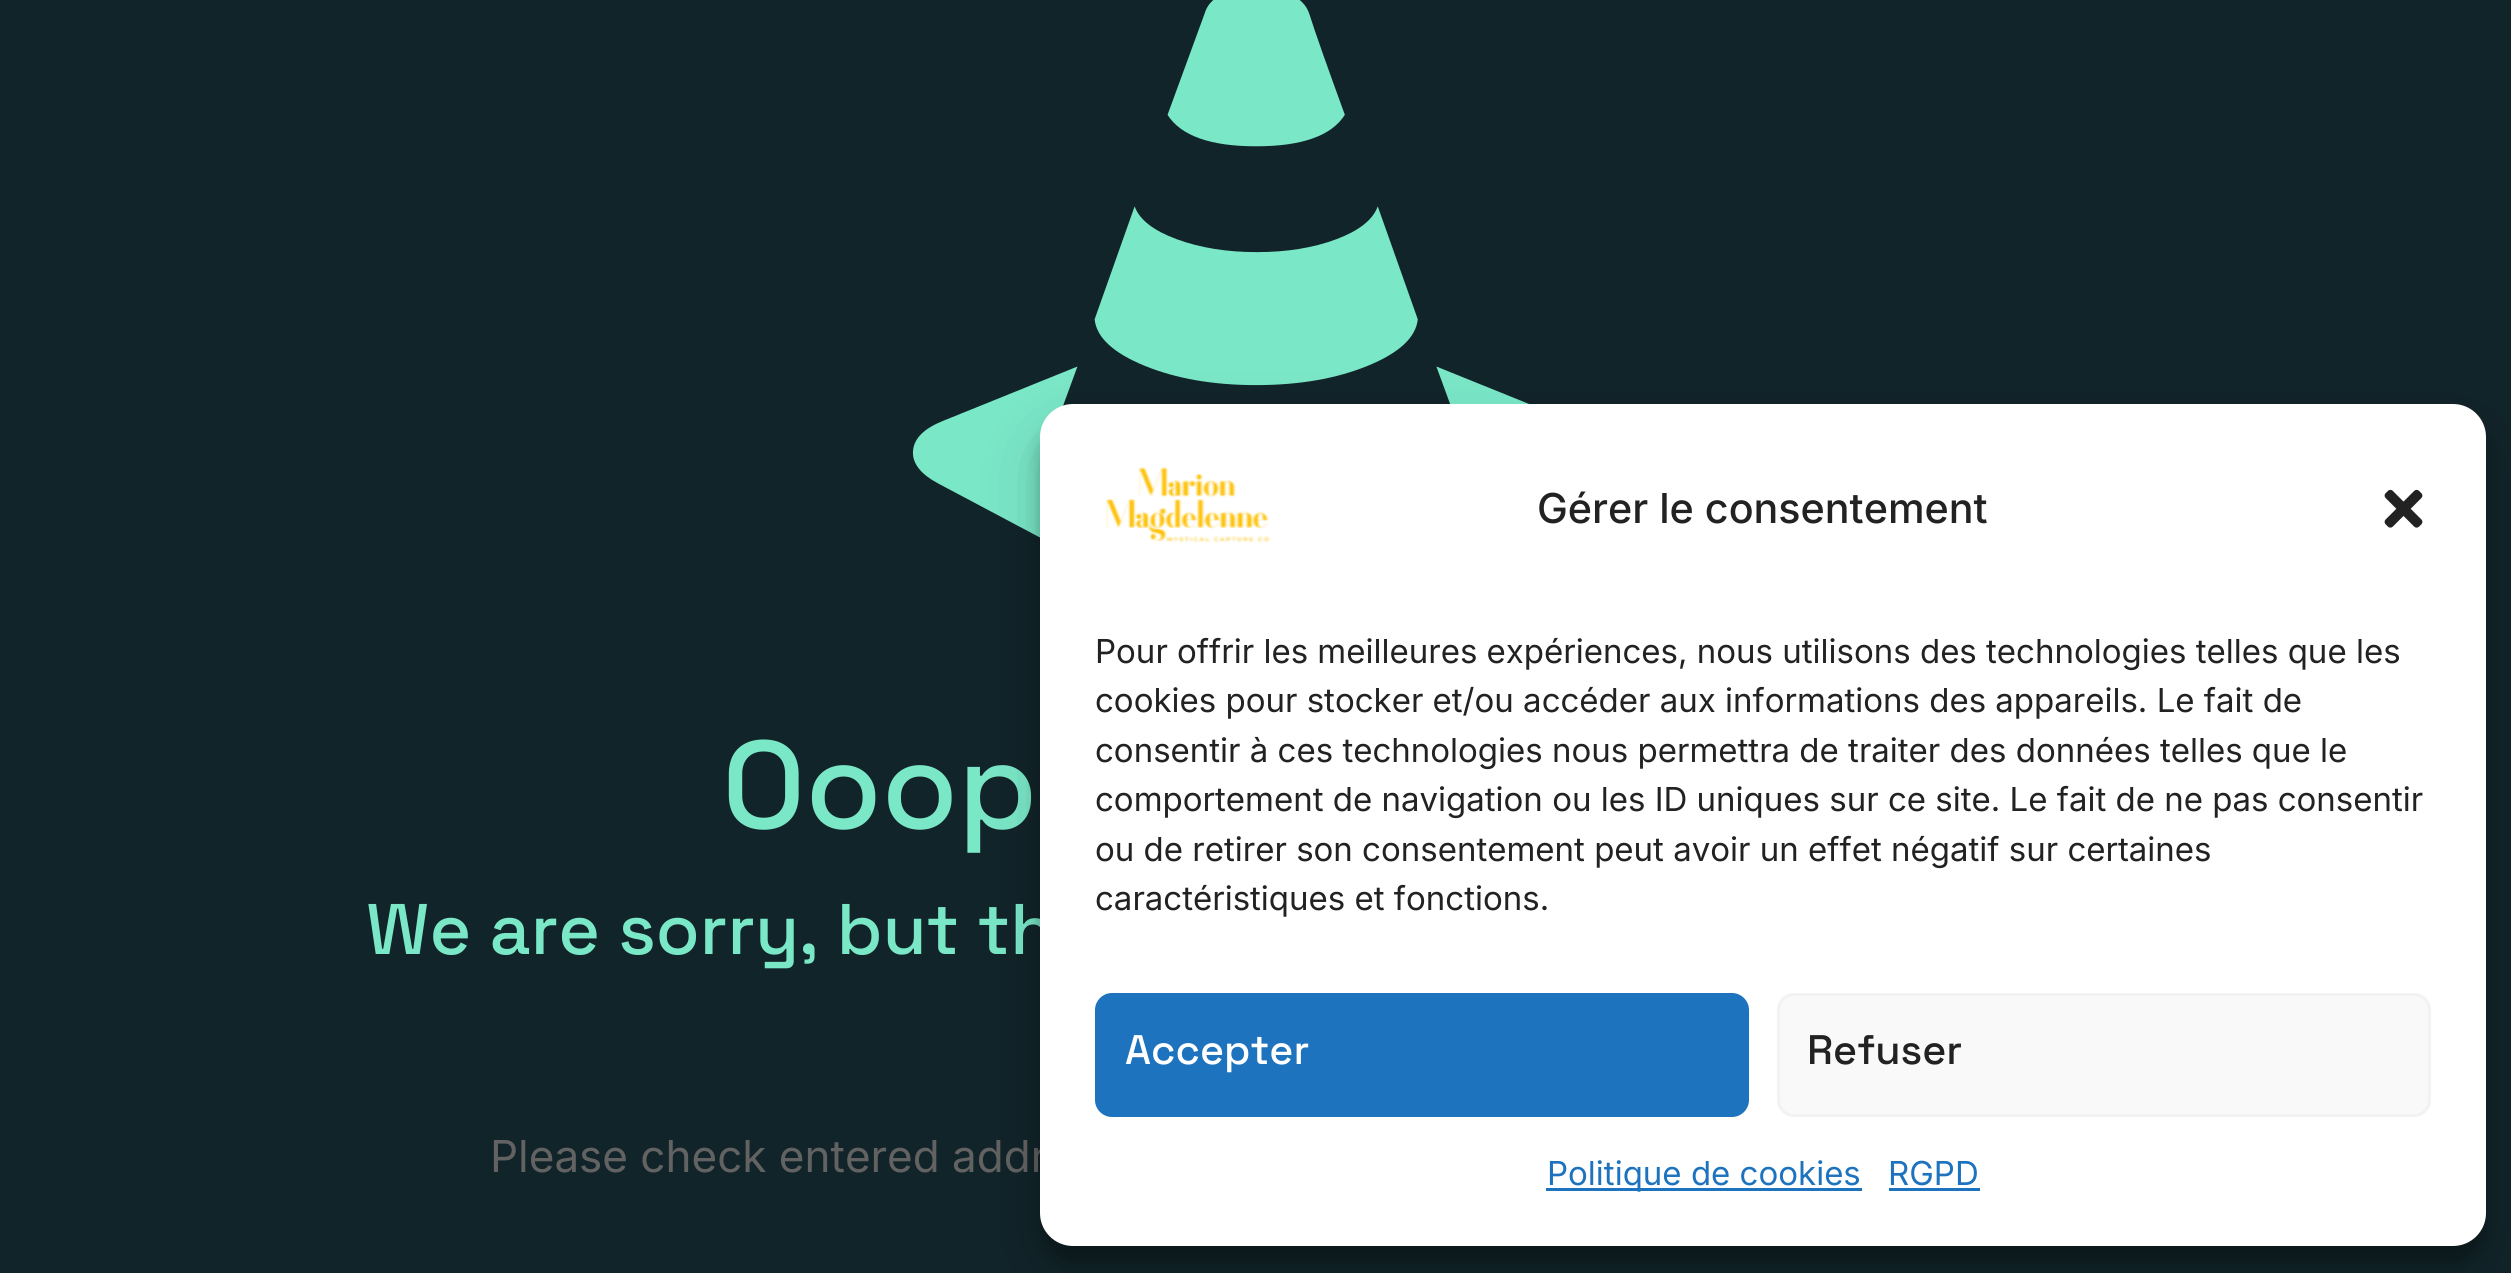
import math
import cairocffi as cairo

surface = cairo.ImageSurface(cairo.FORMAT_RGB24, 2511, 1273)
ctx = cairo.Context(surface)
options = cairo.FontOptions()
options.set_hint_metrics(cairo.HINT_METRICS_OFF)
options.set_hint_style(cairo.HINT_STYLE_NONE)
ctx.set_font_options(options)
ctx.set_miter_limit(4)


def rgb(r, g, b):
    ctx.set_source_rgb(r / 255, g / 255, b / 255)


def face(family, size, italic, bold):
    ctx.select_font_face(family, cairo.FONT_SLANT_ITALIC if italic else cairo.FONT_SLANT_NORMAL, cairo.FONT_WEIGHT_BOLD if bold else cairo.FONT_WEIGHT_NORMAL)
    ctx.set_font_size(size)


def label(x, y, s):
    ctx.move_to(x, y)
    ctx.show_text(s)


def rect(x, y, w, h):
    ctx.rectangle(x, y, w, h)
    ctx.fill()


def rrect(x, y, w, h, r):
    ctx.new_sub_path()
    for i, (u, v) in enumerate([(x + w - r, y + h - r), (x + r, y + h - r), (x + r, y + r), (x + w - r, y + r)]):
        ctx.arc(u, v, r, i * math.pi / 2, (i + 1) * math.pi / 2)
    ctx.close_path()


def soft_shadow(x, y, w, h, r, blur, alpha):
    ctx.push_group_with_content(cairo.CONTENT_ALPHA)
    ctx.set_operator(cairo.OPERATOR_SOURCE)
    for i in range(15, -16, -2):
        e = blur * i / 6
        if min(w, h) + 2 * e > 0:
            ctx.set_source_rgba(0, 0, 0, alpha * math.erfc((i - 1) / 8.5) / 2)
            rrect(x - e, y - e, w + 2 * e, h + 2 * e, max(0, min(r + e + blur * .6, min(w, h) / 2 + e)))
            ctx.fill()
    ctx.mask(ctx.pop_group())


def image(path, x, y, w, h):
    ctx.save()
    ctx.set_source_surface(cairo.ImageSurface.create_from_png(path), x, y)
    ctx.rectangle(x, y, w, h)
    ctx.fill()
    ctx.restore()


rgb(17, 36, 41)
ctx.paint()
image('image0.png', 912, 0, 617, 538)
face('Space Grotesk Medium', 124, 0, 0)
rgb(122, 231, 199)
label(722, 828, 'Ooop')
face('Space Grotesk Medium', 71.5, 0, 0)
label(366, 954, 'We are sorry, but th')
face('Inter', 44, 0, 0)
rgb(98, 98, 98)
label(490, 1172, 'Please check entered addr')
rgb(0, 0, 0)
soft_shadow(1040, 421, 1446, 841, 33, 8, 0.23)
soft_shadow(1040, 432, 1446, 841, 33, 27.5, 0.19)
rgb(255, 255, 255)
rrect(1040, 404, 1446, 842, 33)
ctx.fill()
image('image1.png', 1106, 467, 165, 76)
face('Inter Medium', 41.25, 0, 0)
rgb(34, 34, 34)
label(1537, 523, 'Gérer le consentement')
image('image2.png', 2384, 489, 39, 39)
face('Inter', 33, 0, 0)
label(1095, 663, 'Pour offrir les meilleures expériences, nous utilisons des technologies telles que les')
label(1095, 712, 'cookies pour stocker et/ou accéder aux informations des appareils. Le fait de')
label(1095, 762, 'consentir à ces technologies nous permettra de traiter des données telles que le')
label(1095, 811, 'comportement de navigation ou les ID uniques sur ce site. Le fait de ne pas consentir')
label(1095, 861, 'ou de retirer son consentement peut avoir un effet négatif sur certaines')
label(1095, 910, 'caractéristiques et fonctions.')
rgb(30, 115, 190)
rrect(1096.5, 994.5, 651, 121, 15.5)
ctx.fill_preserve()
ctx.set_line_width(3)
ctx.stroke()
face('Space Grotesk Medium', 41.25, 0, 0)
rgb(255, 255, 255)
label(1125, 1064, 'Accepter')
rgb(249, 249, 249)
rrect(1778.5, 994.5, 651, 121, 15.5)
ctx.fill_preserve()
rgb(242, 242, 242)
ctx.stroke()
rgb(34, 34, 34)
label(1807, 1064, 'Refuser')
rgb(30, 115, 190)
rect(1546, 1188, 316, 3)
face('Inter', 33, 0, 0)
label(1547, 1185, 'Politique de cookies')
label(1888, 1185, 'RGPD')
rect(1889, 1188, 91, 3)
surface.write_to_png('render.png')
